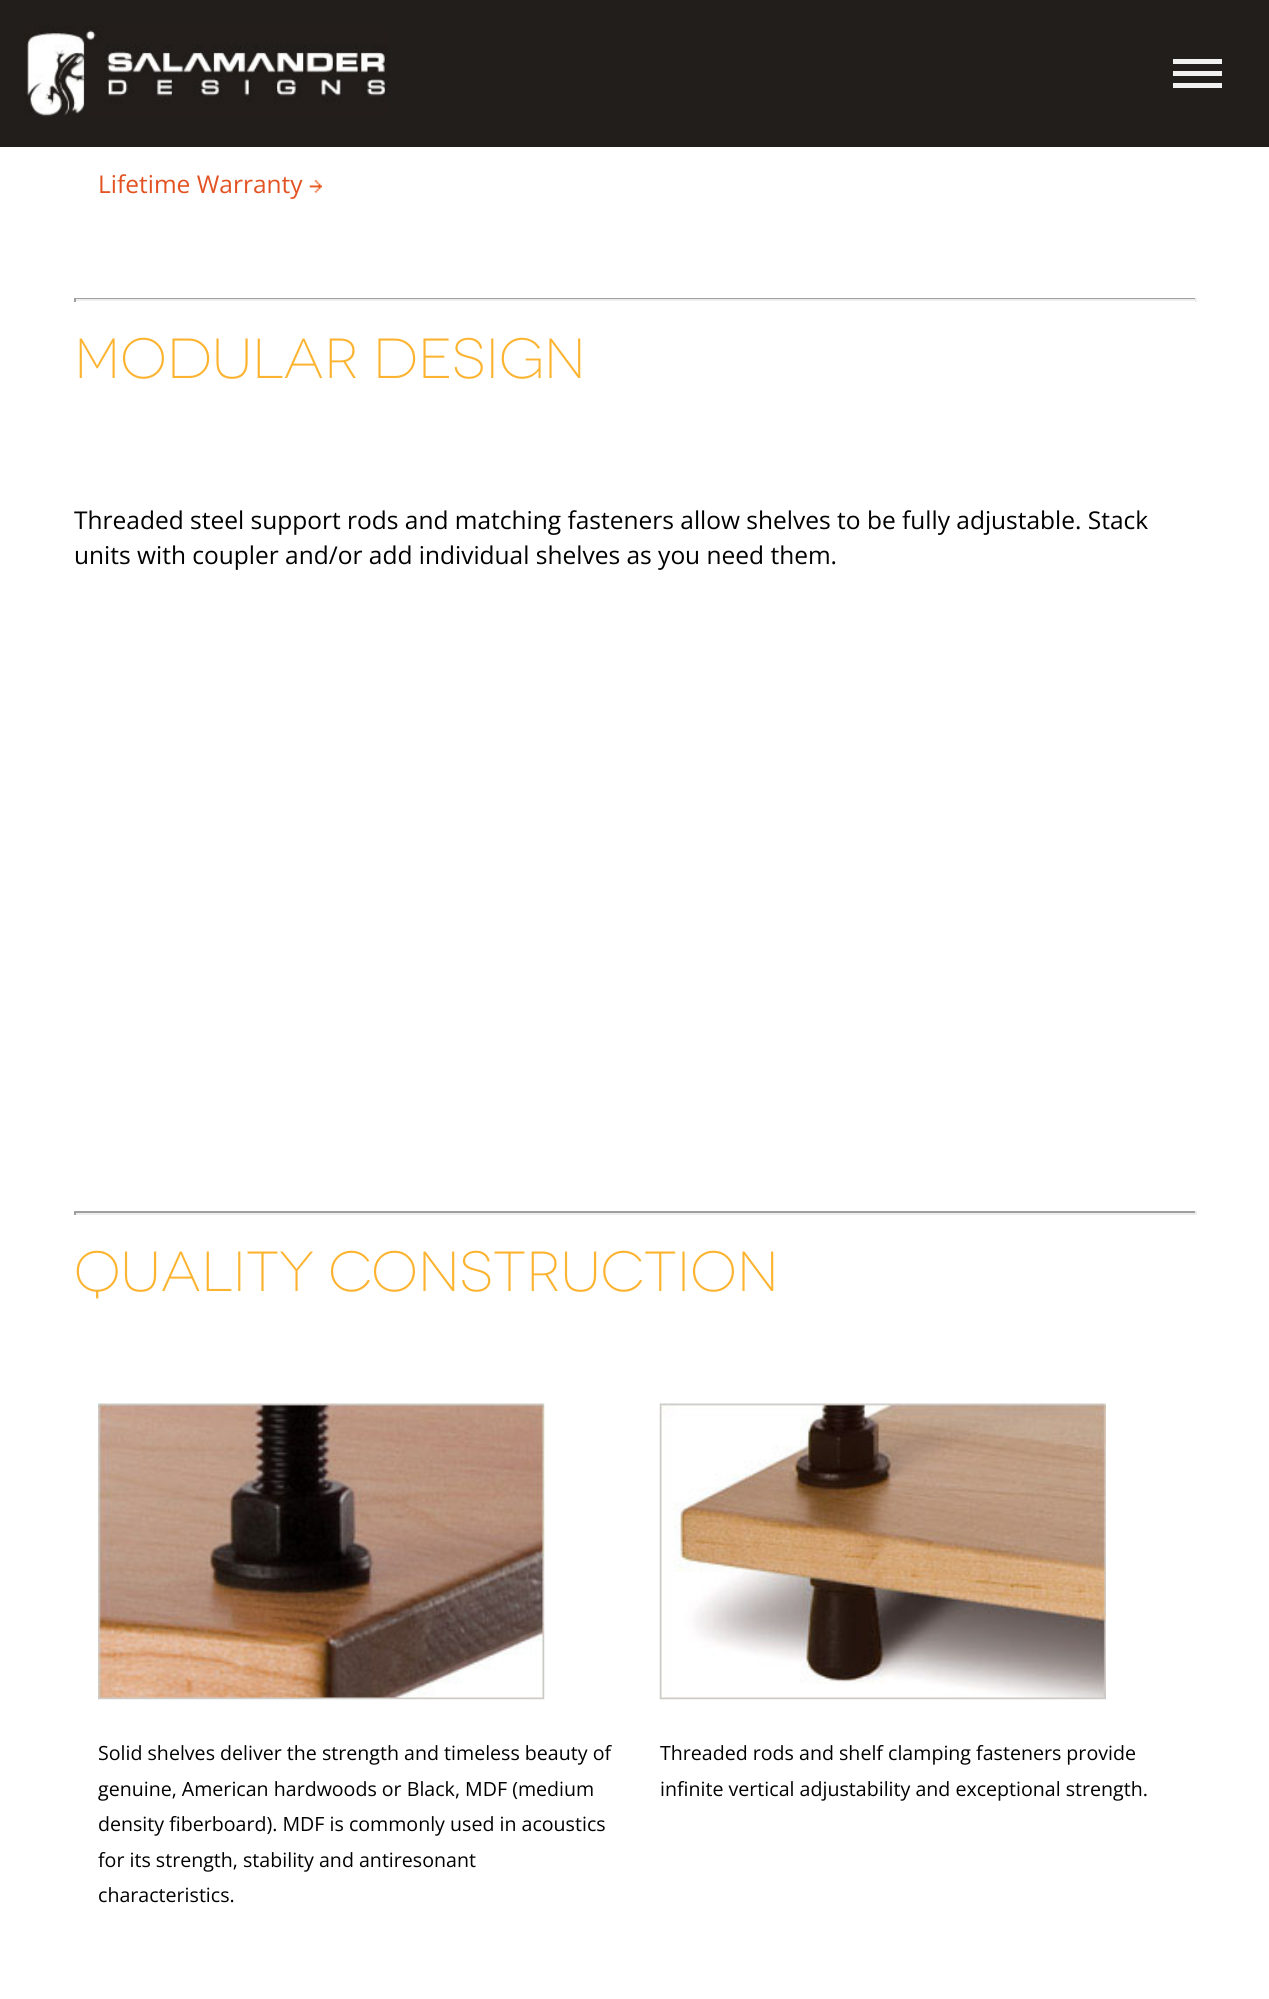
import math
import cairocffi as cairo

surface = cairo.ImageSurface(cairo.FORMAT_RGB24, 1269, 1999)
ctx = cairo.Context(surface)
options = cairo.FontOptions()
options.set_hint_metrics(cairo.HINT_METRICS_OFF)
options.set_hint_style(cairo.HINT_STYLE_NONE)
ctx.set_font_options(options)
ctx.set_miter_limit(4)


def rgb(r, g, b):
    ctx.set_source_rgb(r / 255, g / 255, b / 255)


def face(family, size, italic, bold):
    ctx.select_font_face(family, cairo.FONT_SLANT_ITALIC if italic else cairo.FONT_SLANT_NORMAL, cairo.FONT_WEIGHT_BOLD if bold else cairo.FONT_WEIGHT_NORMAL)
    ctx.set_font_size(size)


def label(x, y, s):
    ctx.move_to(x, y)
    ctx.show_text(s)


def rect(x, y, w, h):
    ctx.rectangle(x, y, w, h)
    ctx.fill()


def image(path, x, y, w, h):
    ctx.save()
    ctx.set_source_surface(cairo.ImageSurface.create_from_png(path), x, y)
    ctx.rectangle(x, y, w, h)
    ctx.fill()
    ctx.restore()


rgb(255, 255, 255)
ctx.paint()
rgb(34, 30, 27)
rect(0, 0, 1269, 147)
image('image0.png', 24, 25, 365, 92)
ctx.save()
ctx.rectangle(1173, 49, 49, 49)
ctx.clip()
rgb(241, 241, 241)
ctx.new_path()
ctx.move_to(1172, 59)
ctx.line_to(1222, 59)
ctx.line_to(1222, 64)
ctx.line_to(1172, 64)
ctx.close_path()
ctx.move_to(1172, 71)
ctx.line_to(1222, 71)
ctx.line_to(1222, 76)
ctx.line_to(1172, 76)
ctx.close_path()
ctx.move_to(1172, 83)
ctx.line_to(1222, 83)
ctx.line_to(1222, 88)
ctx.line_to(1172, 88)
ctx.close_path()
ctx.fill()
ctx.restore()
face('Open Sans', 24.5, 0, 0)
rgb(227, 82, 34)
label(98, 193, 'Lifetime Warranty')
image('image1.png', 309, 180, 13, 13)
rgb(159, 159, 159)
rect(74, 298, 1123, 1)
rgb(238, 238, 238)
rect(1195, 298, 2, 4)
rect(74, 299, 1123, 2)
rgb(159, 159, 159)
rect(74, 298, 2, 4)
face('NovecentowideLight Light', 56.4, 0, 0)
rgb(252, 179, 48)
label(74, 378, 'MODULAR DESIGN')
face('Open Sans', 24.5, 0, 0)
rgb(0, 0, 0)
label(74, 529, 'Threaded steel support rods and matching fasteners allow shelves to be fully adjustable. Stack')
label(74, 564, 'units with coupler and/or add individual shelves as you need them.')
rgb(159, 159, 159)
rect(74, 1211, 1123, 2)
rgb(238, 238, 238)
rect(1195, 1211, 2, 4)
rect(74, 1213, 1123, 2)
rgb(159, 159, 159)
rect(74, 1211, 2, 4)
face('NovecentowideLight Light', 56.4, 0, 0)
rgb(252, 179, 48)
label(74, 1291, 'QUALITY CONSTRUCTION')
image('image2.png', 98, 1403, 447, 297)
face('Open Sans', 19.6, 0, 0)
rgb(0, 0, 0)
label(98, 1760, 'Solid shelves deliver the strength and timeless beauty of')
label(98, 1796, 'genuine, American hardwoods or Black, MDF (medium')
label(98, 1831, 'density fiberboard). MDF is commonly used in acoustics')
label(98, 1867, 'for its strength, stability and antiresonant')
label(98, 1902, 'characteristics.')
image('image3.png', 659, 1403, 447, 297)
label(660, 1760, 'Threaded rods and shelf clamping fasteners provide')
label(660, 1796, 'infinite vertical adjustability and exceptional strength.')
surface.write_to_png('render.png')
